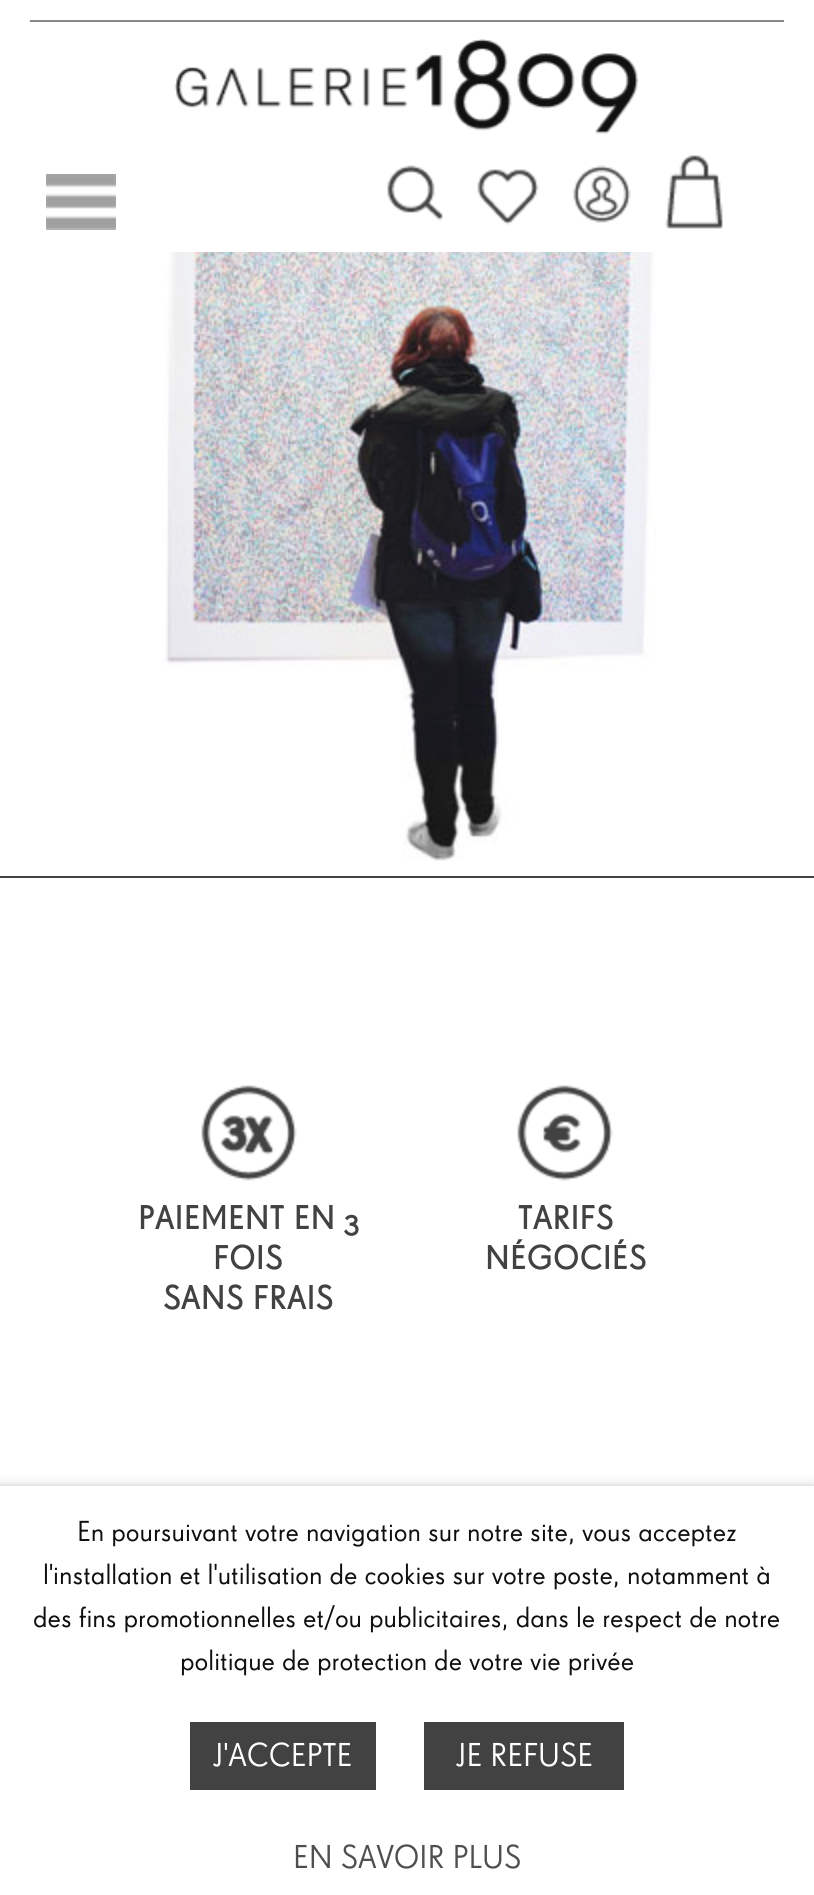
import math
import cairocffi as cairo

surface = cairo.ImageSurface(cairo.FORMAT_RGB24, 814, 1895)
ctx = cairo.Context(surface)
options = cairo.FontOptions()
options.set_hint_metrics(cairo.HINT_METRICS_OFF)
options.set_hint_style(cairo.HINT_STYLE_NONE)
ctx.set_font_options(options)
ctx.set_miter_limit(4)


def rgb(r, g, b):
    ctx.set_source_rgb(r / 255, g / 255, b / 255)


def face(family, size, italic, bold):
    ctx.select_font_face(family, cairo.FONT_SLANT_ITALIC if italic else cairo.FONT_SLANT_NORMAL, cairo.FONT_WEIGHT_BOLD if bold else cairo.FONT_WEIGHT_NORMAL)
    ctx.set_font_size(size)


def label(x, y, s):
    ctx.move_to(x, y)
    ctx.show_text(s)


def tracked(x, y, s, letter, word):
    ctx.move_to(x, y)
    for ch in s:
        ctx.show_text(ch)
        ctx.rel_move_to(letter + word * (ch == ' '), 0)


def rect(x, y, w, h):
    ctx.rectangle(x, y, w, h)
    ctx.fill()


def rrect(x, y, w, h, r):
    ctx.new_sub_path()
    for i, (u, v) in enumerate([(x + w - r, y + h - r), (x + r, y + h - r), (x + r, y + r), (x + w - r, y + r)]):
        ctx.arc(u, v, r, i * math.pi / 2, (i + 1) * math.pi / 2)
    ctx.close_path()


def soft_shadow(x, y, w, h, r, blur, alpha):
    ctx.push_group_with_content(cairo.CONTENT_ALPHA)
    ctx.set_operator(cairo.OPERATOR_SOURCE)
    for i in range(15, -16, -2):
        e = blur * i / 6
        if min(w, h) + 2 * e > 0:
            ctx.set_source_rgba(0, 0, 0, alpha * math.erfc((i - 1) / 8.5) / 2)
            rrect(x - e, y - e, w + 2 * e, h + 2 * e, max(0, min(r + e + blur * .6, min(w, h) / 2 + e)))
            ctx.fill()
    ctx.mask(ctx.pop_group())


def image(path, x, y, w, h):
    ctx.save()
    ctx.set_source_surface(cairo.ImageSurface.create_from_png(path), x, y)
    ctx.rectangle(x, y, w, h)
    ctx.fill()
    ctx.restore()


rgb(255, 255, 255)
ctx.paint()
rgb(135, 135, 135)
rect(30, 20, 754, 2)
image('image0.png', 174, 39, 465, 95)
image('image1.png', 46, 174, 70, 56)
image('image2.png', 387, 165, 56, 56)
image('image3.png', 477, 169, 62, 56)
image('image4.png', 573, 165, 58, 58)
image('image5.png', 665, 155, 58, 74)
image('image6.png', 162, 252, 494, 609)
rgb(66, 66, 66)
rect(0, 876, 814, 2)
image('image7.png', 201, 1085, 96, 96)
face('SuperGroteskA', 32, 0, 1)
tracked(138, 1229, 'PAIEMENT EN 3', 1, 0)
tracked(213, 1269, 'FOIS', 1, 0)
tracked(163, 1309, 'SANS FRAIS', 1, 0)
image('image8.png', 517, 1085, 96, 96)
tracked(518, 1229, 'TARIFS', 1, 0)
tracked(485, 1269, 'NÉGOCIÉS', 1, 0)
rgb(198, 198, 198)
soft_shadow(0, 1486, 814, 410, 0, 5, 1)
rgb(255, 255, 255)
rect(0, 1486, 814, 409)
face('SuperGroteskA', 28, 0, 0)
rgb(15, 15, 15)
label(77, 1541, 'En poursuivant votre navigation sur notre site, vous acceptez')
label(43, 1584, 'l\'installation et l\'utilisation de cookies sur votre poste, notamment à')
label(33, 1627, 'des fins promotionnelles et/ou publicitaires, dans le respect de notre')
label(180, 1670, 'politique de protection de votre vie privée')
rgb(66, 66, 66)
rect(190, 1722, 186, 68)
face('SuperGroteskA', 32, 0, 0)
rgb(255, 255, 255)
label(213, 1766, 'J\'ACCEPTE')
rgb(66, 66, 66)
rect(424, 1722, 200, 68)
rgb(255, 255, 255)
label(456, 1766, 'JE REFUSE')
rgb(79, 79, 79)
label(293, 1868, 'EN SAVOIR PLUS')
surface.write_to_png('render.png')
